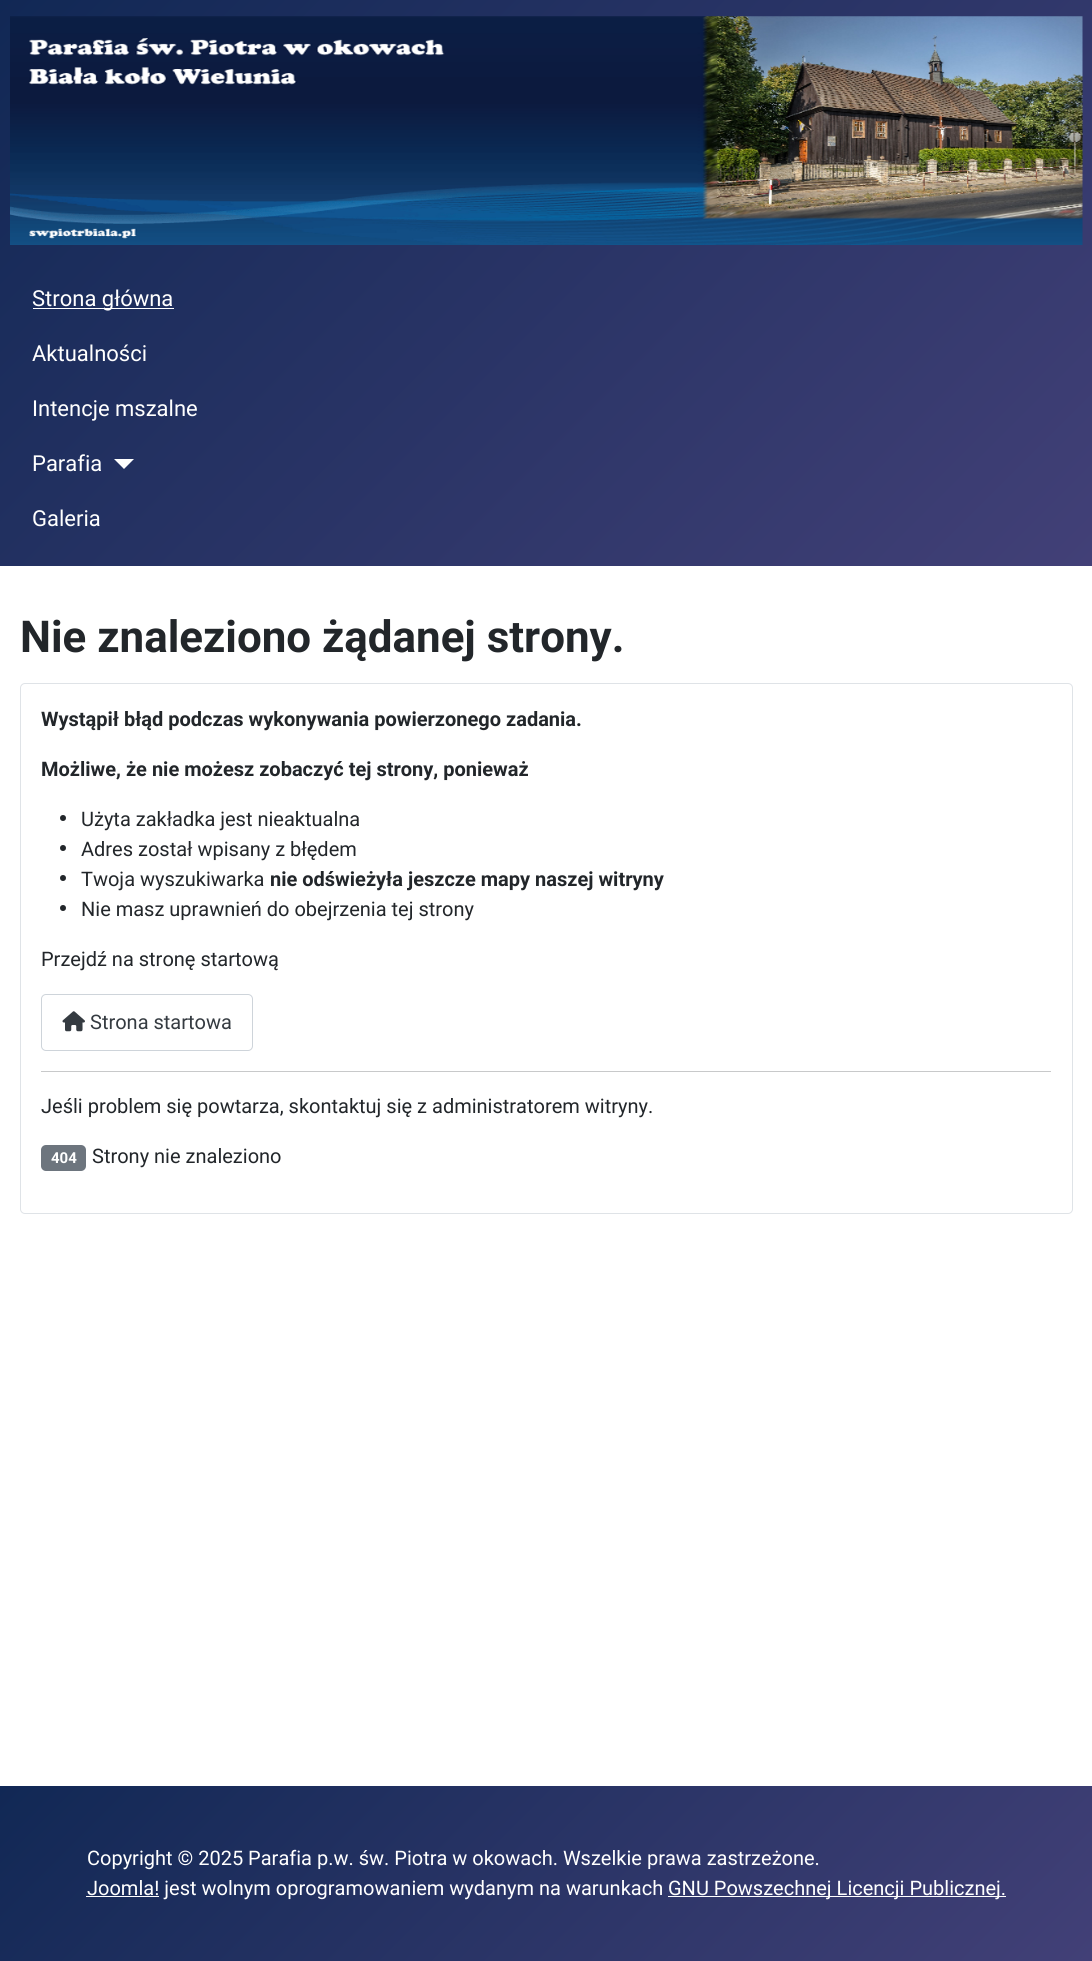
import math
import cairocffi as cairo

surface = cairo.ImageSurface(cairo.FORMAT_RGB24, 1092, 1961)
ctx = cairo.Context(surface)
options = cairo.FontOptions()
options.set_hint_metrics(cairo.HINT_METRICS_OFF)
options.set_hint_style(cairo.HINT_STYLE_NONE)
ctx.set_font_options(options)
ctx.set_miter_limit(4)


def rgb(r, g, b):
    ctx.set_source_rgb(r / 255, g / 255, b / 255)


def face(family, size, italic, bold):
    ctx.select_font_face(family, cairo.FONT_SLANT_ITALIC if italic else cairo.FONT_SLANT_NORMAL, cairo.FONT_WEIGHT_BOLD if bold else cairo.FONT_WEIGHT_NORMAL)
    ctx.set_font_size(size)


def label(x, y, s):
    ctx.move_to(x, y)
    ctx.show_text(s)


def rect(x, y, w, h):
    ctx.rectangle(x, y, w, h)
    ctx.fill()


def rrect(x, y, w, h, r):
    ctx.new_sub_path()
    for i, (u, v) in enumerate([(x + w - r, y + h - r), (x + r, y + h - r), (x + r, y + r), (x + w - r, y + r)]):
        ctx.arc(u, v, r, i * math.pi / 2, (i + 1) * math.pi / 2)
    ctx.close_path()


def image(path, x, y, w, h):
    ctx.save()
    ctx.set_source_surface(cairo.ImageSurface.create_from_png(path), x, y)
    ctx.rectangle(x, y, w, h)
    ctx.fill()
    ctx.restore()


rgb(255, 255, 255)
ctx.paint()
gradient = cairo.LinearGradient(132, -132, 961, 698)
gradient.add_color_stop_rgba(0, 0.067, 0.157, 0.333, 1)
gradient.add_color_stop_rgba(1, 0.259, 0.251, 0.467, 1)
ctx.set_source(gradient)
rect(0, 0, 1092, 566)
image('image0.png', 10, 16, 1073, 229)
rgb(255, 255, 255)
rect(33, 308, 141, 1)
face('Roboto', 22, 0, 0)
label(32, 306, 'Strona główna')
label(32, 361, 'Aktualności')
label(32, 416, 'Intencje mszalne')
label(32, 471, 'Parafia')
ctx.new_path()
ctx.move_to(114, 459)
ctx.line_to(134, 459)
ctx.line_to(124, 469)
ctx.close_path()
ctx.fill()
label(32, 526, 'Galeria')
face('Roboto', 43.9, 0, 1)
rgb(34, 38, 42)
label(20, 652, 'Nie znaleziono żądanej strony.')
rrect(20.5, 683.5, 1052, 530, 4.5)
rgb(223, 227, 231)
ctx.set_line_width(1)
ctx.stroke()
face('Roboto', 20, 0, 1)
rgb(34, 38, 42)
label(41, 726, 'Wystąpił błąd podczas wykonywania powierzonego zadania.')
label(41, 776, 'Możliwe, że nie możesz zobaczyć tej strony, ponieważ')
ctx.new_path()
ctx.arc(63, 818, 3, 0, 2 * math.pi)
ctx.fill()
face('Roboto', 20, 0, 0)
label(81, 826, 'Użyta zakładka jest nieaktualna')
ctx.new_path()
ctx.arc(63, 848, 3, 0, 2 * math.pi)
ctx.fill()
label(81, 856, 'Adres został wpisany z błędem')
ctx.new_path()
ctx.arc(63, 878, 3, 0, 2 * math.pi)
ctx.fill()
label(81, 886, 'Twoja wyszukiwarka')
face('Roboto', 20, 0, 1)
label(270, 886, 'nie odświeżyła jeszcze mapy naszej witryny')
ctx.new_path()
ctx.arc(63, 908, 3, 0, 2 * math.pi)
ctx.fill()
face('Roboto', 20, 0, 0)
label(81, 916, 'Nie masz uprawnień do obejrzenia tej strony')
label(41, 966, 'Przejdź na stronę startową')
rrect(41.5, 994.5, 211, 56, 4.5)
rgb(206, 212, 218)
ctx.stroke()
image('image1.png', 62, 1011, 23, 21)
rgb(53, 59, 65)
label(90, 1029, 'Strona startowa')
rgb(200, 201, 202)
rect(41, 1071, 1010, 1)
rgb(34, 38, 42)
label(41, 1113, 'Jeśli problem się powtarza, skontaktuj się z administratorem witryny.')
rgb(109, 117, 126)
rrect(41, 1145, 45, 26, 5)
ctx.fill()
face('Roboto', 15, 0, 1)
rgb(255, 255, 255)
label(51, 1163, '404')
face('Roboto', 20, 0, 0)
rgb(34, 38, 42)
label(92, 1163, 'Strony nie znaleziono')
gradient = cairo.LinearGradient(229, 1557, 863, 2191)
gradient.add_color_stop_rgba(0, 0.067, 0.157, 0.333, 1)
gradient.add_color_stop_rgba(1, 0.259, 0.251, 0.467, 1)
ctx.set_source(gradient)
rect(0, 1786, 1092, 175)
rgb(255, 255, 255)
label(87, 1865, 'Copyright © 2025 Parafia p.w. św. Piotra w okowach. Wszelkie prawa zastrzeżone.')
rect(86, 1896, 73, 1)
label(87, 1895, 'Joomla! jest wolnym oprogramowaniem wydanym na warunkach')
rect(668, 1896, 338, 1)
label(668, 1895, 'GNU Powszechnej Licencji Publicznej.')
surface.write_to_png('render.png')
